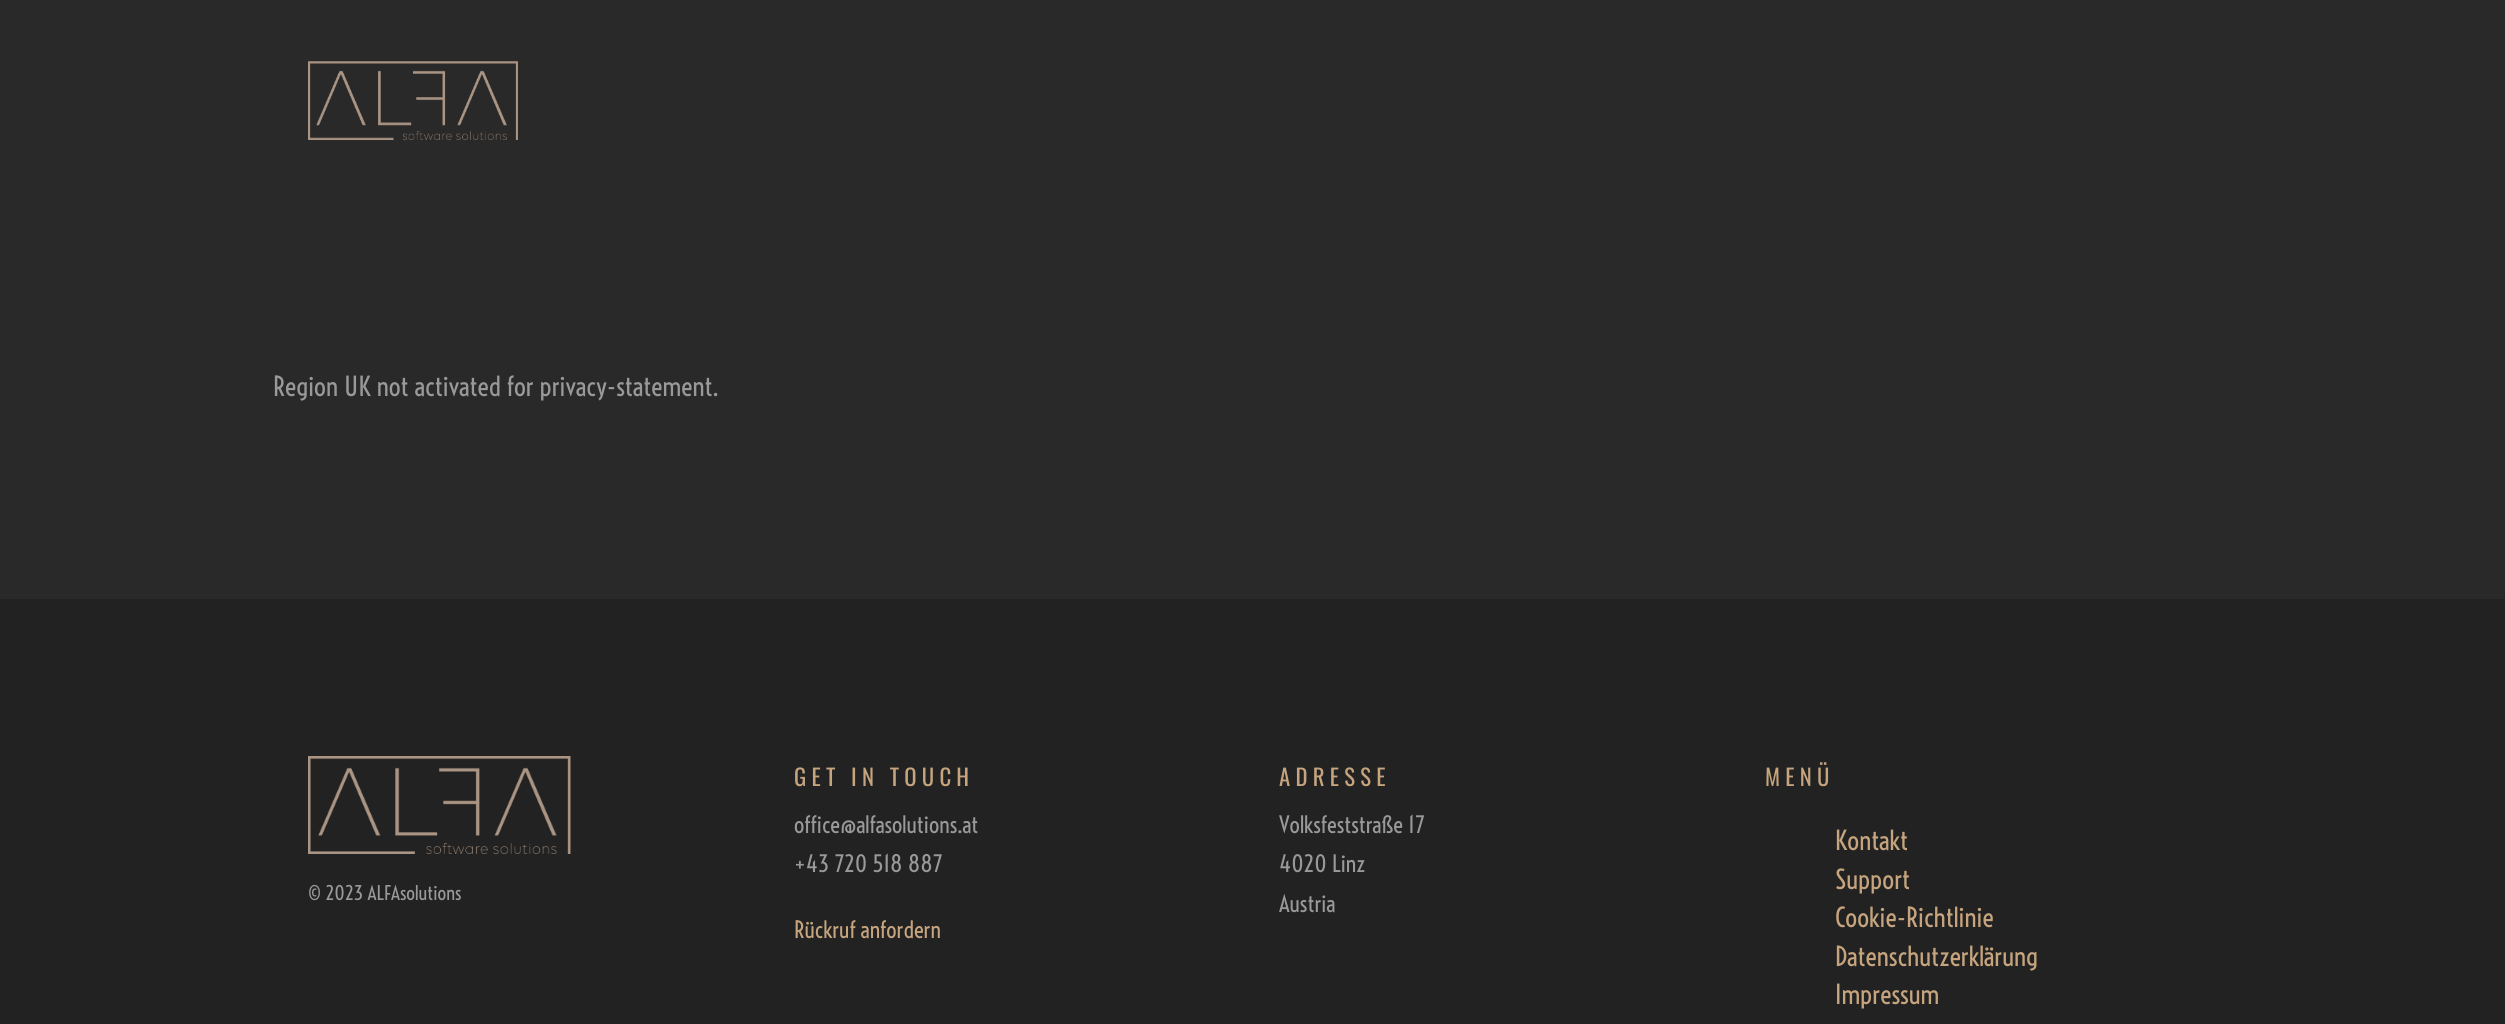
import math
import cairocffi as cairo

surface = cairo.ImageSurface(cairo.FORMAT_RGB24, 2505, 1024)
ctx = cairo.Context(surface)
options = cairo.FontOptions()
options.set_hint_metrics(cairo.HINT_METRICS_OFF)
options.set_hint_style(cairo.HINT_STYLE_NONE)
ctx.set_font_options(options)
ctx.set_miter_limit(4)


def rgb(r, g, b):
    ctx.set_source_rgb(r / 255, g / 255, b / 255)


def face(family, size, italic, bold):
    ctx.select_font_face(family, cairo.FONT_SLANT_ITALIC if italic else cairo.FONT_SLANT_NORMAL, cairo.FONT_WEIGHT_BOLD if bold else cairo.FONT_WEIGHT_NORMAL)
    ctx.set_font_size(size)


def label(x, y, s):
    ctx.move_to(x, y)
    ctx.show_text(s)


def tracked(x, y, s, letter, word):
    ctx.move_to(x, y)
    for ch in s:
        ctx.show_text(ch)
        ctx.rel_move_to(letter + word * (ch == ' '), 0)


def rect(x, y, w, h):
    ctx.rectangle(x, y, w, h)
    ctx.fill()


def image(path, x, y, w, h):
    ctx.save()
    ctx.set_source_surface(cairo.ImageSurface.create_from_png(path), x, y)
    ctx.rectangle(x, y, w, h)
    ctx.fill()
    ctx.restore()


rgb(41, 41, 41)
ctx.paint()
image('image0.png', 308, 61, 210, 79)
face('Voltaire', 26.25, 0, 0)
rgb(153, 153, 153)
label(273, 396, 'Region UK not activated for privacy-statement.')
rgb(34, 34, 34)
rect(0, 599, 2505, 425)
image('image1.png', 308, 756, 263, 98)
face('Voltaire', 19.25, 0, 0)
rgb(153, 153, 153)
label(308, 900, '© 2023 ALFAsolutions')
face('Oswald', 22.75, 0, 0)
rgb(197, 164, 126)
tracked(794, 786, 'GET IN TOUCH', 5.25, 0)
face('Voltaire', 22.75, 0, 0)
rgb(153, 153, 153)
label(794, 833, 'office@alfasolutions.at')
label(794, 872, '+43 720 518 887')
rgb(197, 164, 126)
label(794, 938, 'Rückruf anfordern')
face('Oswald', 22.75, 0, 0)
tracked(1279, 786, 'ADRESSE', 5.25, 0)
face('Voltaire', 22.75, 0, 0)
rgb(153, 153, 153)
label(1279, 833, 'Volksfeststraße 17')
label(1279, 872, '4020 Linz')
label(1279, 912, 'Austria')
face('Oswald', 22.75, 0, 0)
rgb(197, 164, 126)
tracked(1765, 786, 'MENÜ', 5.25, 0)
face('Voltaire', 26.25, 0, 0)
label(1835, 850, 'Kontakt')
label(1835, 889, 'Support')
label(1835, 927, 'Cookie-Richtlinie')
label(1835, 966, 'Datenschutzerklärung')
label(1835, 1004, 'Impressum')
surface.write_to_png('render.png')
